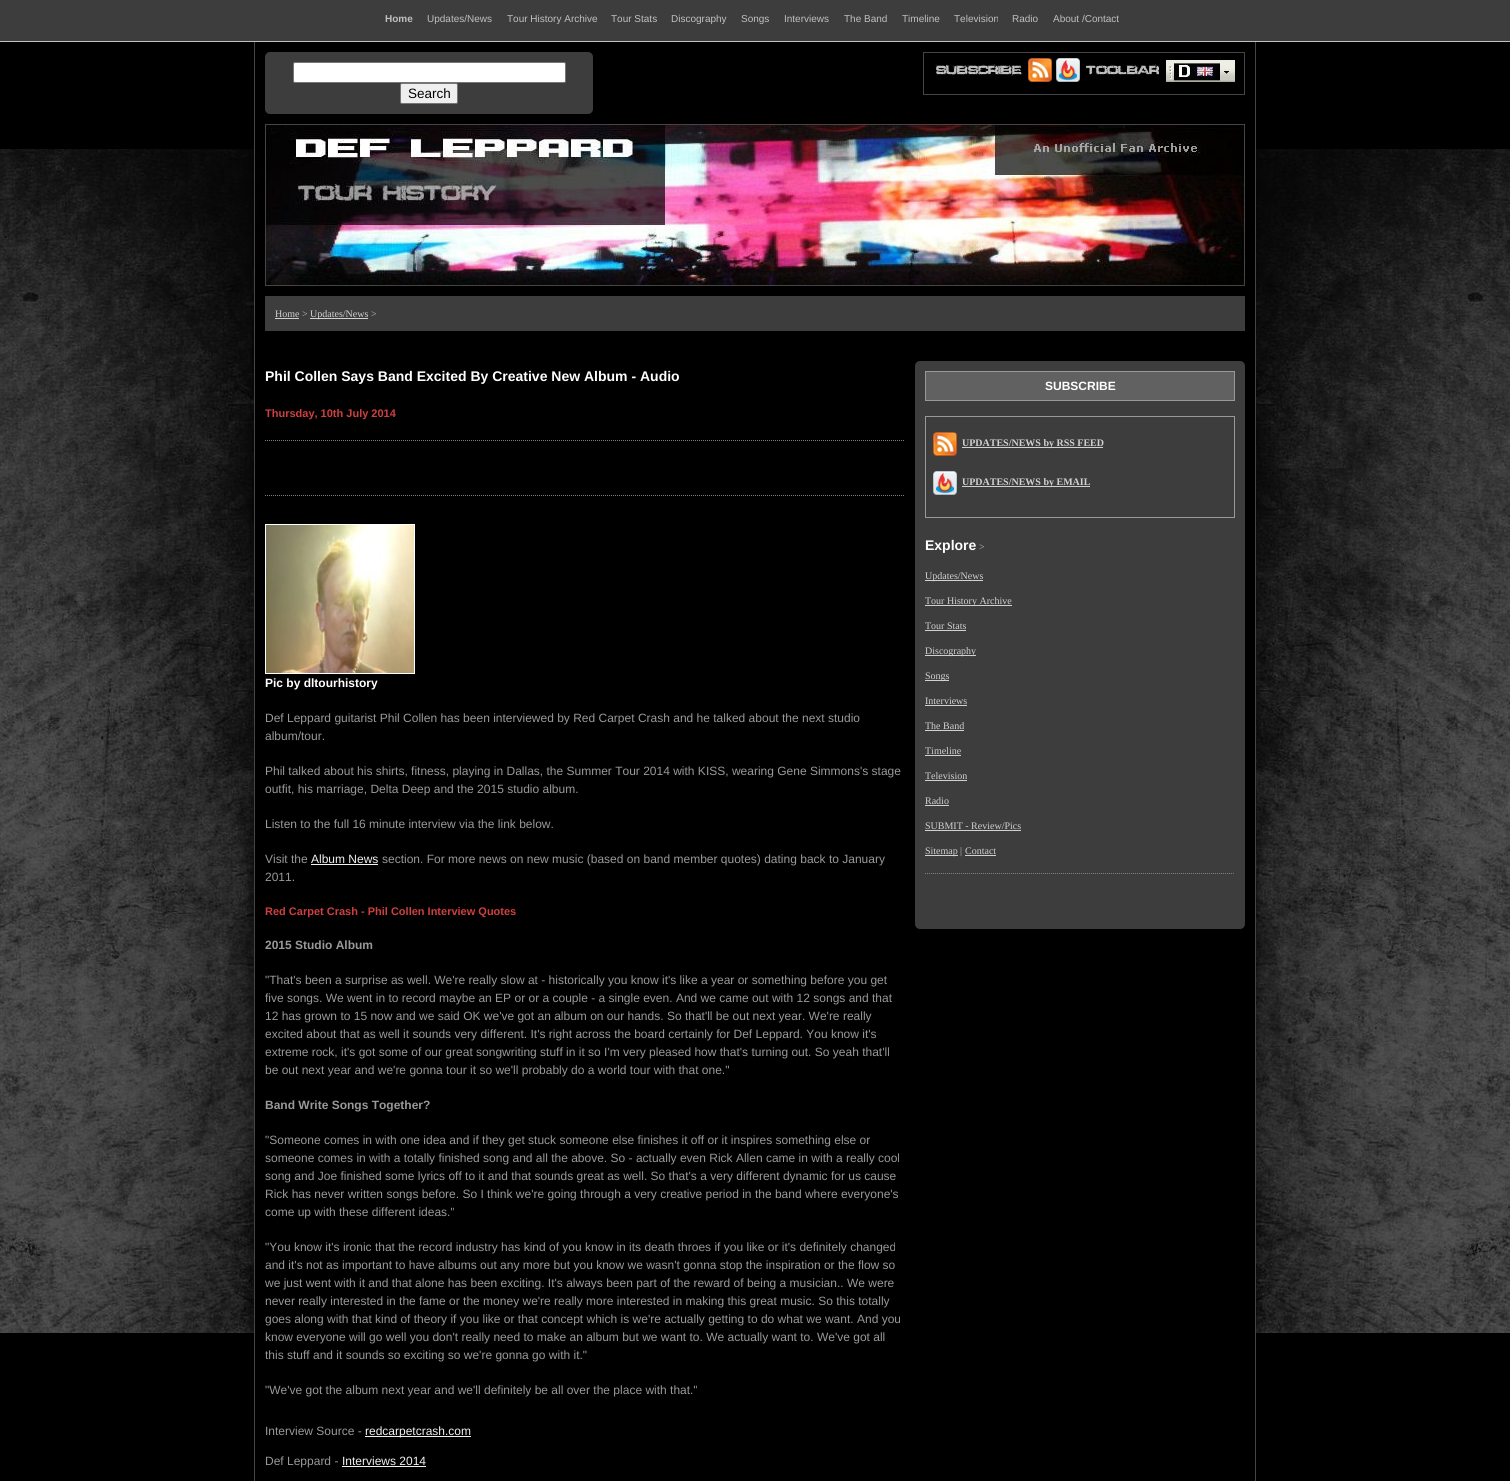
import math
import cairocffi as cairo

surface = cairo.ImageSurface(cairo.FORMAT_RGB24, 1510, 1481)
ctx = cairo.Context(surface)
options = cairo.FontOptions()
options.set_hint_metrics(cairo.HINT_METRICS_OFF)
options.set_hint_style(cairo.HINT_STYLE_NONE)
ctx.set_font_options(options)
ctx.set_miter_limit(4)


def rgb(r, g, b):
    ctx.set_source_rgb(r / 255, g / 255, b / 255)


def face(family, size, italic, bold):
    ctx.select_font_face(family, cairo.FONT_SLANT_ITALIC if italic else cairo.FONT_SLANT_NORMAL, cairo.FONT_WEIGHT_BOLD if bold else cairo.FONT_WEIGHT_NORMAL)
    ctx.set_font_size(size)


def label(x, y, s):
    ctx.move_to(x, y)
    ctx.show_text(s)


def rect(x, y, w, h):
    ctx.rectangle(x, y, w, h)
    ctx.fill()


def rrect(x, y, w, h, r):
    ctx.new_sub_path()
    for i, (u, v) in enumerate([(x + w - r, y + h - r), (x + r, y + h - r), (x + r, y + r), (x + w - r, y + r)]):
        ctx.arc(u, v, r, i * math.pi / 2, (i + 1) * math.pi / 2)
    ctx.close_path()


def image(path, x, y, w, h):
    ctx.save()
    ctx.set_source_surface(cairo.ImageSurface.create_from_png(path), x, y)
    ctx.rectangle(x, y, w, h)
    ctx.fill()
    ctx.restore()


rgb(61, 61, 61)
ctx.paint()
rgb(192, 192, 192)
rect(0, 41, 1510, 1)
face('Liberation Sans', 10, 0, 1)
label(385, 22, 'Home')
face('Liberation Sans', 10, 0, 0)
label(427, 22, 'Updates/News')
label(507, 22, 'Tour History Archive')
label(611, 22, 'Tour Stats')
label(671, 22, 'Discography')
label(741, 22, 'Songs')
label(784, 22, 'Interviews')
label(844, 22, 'The Band')
label(902, 22, 'Timeline')
label(954, 22, 'Television')
label(1012, 22, 'Radio')
label(1053, 22, 'About /Contact')
rgb(0, 0, 0)
rect(0, 42, 1510, 1439)
image('image0.png', 0, 149, 1510, 1184)
rgb(69, 69, 69)
rect(1255, 42, 1, 107)
rect(254, 42, 1, 107)
rgb(61, 61, 61)
rrect(265, 52, 328, 62, 5)
ctx.fill()
rgb(255, 255, 255)
rrect(293.5, 62.5, 272, 20, 1.5)
ctx.fill_preserve()
rgb(118, 118, 118)
ctx.set_line_width(1)
ctx.stroke()
rgb(239, 239, 239)
rrect(400.5, 83.5, 57, 20, 1.5)
ctx.fill_preserve()
rgb(118, 118, 118)
ctx.stroke()
face('Liberation Sans', 13.5, 0, 0)
rgb(0, 0, 0)
label(408, 98, 'Search')
ctx.rectangle(923.5, 52.5, 321, 42)
rgb(69, 69, 69)
ctx.stroke()
image('image1.png', 935, 64, 88, 12)
image('image2.png', 1028, 58, 24, 24)
image('image3.png', 1056, 58, 24, 24)
image('image4.png', 1086, 64, 73, 11)
image('image5.png', 1166, 60, 69, 22)
image('image6.png', 265, 124, 980, 162)
rgb(0, 0, 0)
rect(258, 303, 1, 2)
rgb(69, 69, 69)
rect(1255, 296, 1, 15)
rgb(61, 61, 61)
rect(265, 296, 980, 35)
face('Liberation Serif', 10, 0, 0)
rgb(209, 209, 209)
label(275, 317, 'Home')
rect(275, 318, 24, 1)
rgb(192, 192, 192)
label(302, 317, '>')
rgb(209, 209, 209)
rect(310, 318, 58, 1)
label(310, 317, 'Updates/News')
rgb(192, 192, 192)
label(371, 317, '>')
rgb(0, 0, 0)
rect(255, 401, 1000, 932)
rgb(69, 69, 69)
rect(1255, 388, 1, 1093)
rect(254, 591, 1, 890)
face('Liberation Sans', 14, 0, 1)
rgb(255, 255, 255)
label(265, 381, 'Phil Collen Says Band Excited By Creative New Album - Audio')
face('Liberation Sans', 11, 0, 1)
rgb(207, 63, 63)
label(265, 417, 'Thursday, 10th July 2014')
ctx.new_path()
ctx.move_to(265, 440.5)
ctx.line_to(905, 440.5)
rgb(128, 128, 128)
ctx.set_dash([1, 1])
ctx.stroke()
ctx.new_path()
ctx.move_to(265, 495.5)
ctx.line_to(905, 495.5)
ctx.stroke()
ctx.rectangle(265.5, 524.5, 149, 149)
rgb(255, 255, 255)
ctx.set_dash([])
ctx.stroke()
image('image7.png', 266, 525, 148, 148)
face('Liberation Sans', 12, 0, 1)
label(265, 687, 'Pic by dltourhistory')
face('Liberation Sans', 12, 0, 0)
rgb(153, 153, 153)
label(265, 722, 'Def Leppard guitarist Phil Collen has been interviewed by Red Carpet Crash and he talked about the next studio')
label(265, 740, 'album/tour.')
label(265, 775, 'Phil talked about his shirts, fitness, playing in Dallas, the Summer Tour 2014 with KISS, wearing Gene Simmons\'s stage')
label(265, 793, 'outfit, his marriage, Delta Deep and the 2015 studio album.')
label(265, 828, 'Listen to the full 16 minute interview via the link below.')
label(265, 863, 'Visit the')
rgb(242, 242, 242)
label(311, 863, 'Album News')
rect(311, 864, 67, 1)
rgb(153, 153, 153)
label(382, 863, 'section. For more news on new music (based on band member quotes) dating back to January')
label(265, 881, '2011.')
face('Liberation Sans', 11, 0, 1)
rgb(207, 63, 63)
label(265, 915, 'Red Carpet Crash - Phil Collen Interview Quotes')
face('Liberation Sans', 12, 0, 1)
rgb(153, 153, 153)
label(265, 949, '2015 Studio Album')
face('Liberation Sans', 12, 0, 0)
label(265, 984, '"That\'s been a surprise as well. We\'re really slow at - historically you know it\'s like a year or something before you get')
label(265, 1002, 'five songs. We went in to record maybe an EP or or a couple - a single even. And we came out with 12 songs and that')
label(265, 1020, '12 has grown to 15 now and we said OK we\'ve got an album on our hands. So that\'ll be out next year. We\'re really')
label(265, 1038, 'excited about that as well it sounds very different. It\'s right across the board certainly for Def Leppard. You know it\'s')
label(265, 1056, 'extreme rock, it\'s got some of our great songwriting stuff in it so I\'m very pleased how that\'s turning out. So yeah that\'ll')
label(265, 1074, 'be out next year and we\'re gonna tour it so we\'ll probably do a world tour with that one."')
face('Liberation Sans', 12, 0, 1)
label(265, 1109, 'Band Write Songs Together?')
face('Liberation Sans', 12, 0, 0)
label(265, 1144, '"Someone comes in with one idea and if they get stuck someone else finishes it off or it inspires something else or')
label(265, 1162, 'someone comes in with a totally finished song and all the above. So - actually even Rick Allen came in with a really cool')
label(265, 1180, 'song and Joe finished some lyrics off to it and that sounds great as well. So that\'s a very different dynamic for us cause')
label(265, 1198, 'Rick has never written songs before. So I think we\'re going through a very creative period in the band where everyone\'s')
label(265, 1216, 'come up with these different ideas."')
label(265, 1251, '"You know it\'s ironic that the record industry has kind of you know in its death throes if you like or it\'s definitely changed')
label(265, 1269, 'and it\'s not as important to have albums out any more but you know we wasn\'t gonna stop the inspiration or the flow so')
label(265, 1287, 'we just went with it and that alone has been exciting. It\'s always been part of the reward of being a musician.. We were')
label(265, 1305, 'never really interested in the fame or the money we\'re really more interested in making this great music. So this totally')
label(265, 1323, 'goes along with that kind of theory if you like or that concept which is we\'re actually getting to do what we want. And you')
label(265, 1341, 'know everyone will go well you don\'t really need to make an album but we want to. We actually want to. We\'ve got all')
label(265, 1359, 'this stuff and it sounds so exciting so we\'re gonna go with it."')
label(265, 1394, '"We\'ve got the album next year and we\'ll definitely be all over the place with that."')
label(265, 1435, 'Interview Source -')
rgb(242, 242, 242)
rect(365, 1436, 106, 1)
label(365, 1435, 'redcarpetcrash.com')
rgb(153, 153, 153)
label(265, 1465, 'Def Leppard -')
rgb(242, 242, 242)
label(342, 1465, 'Interviews 2014')
rect(342, 1466, 84, 1)
rgb(61, 61, 61)
rrect(915, 361, 330, 568, 5)
ctx.fill()
rgb(97, 97, 97)
ctx.rectangle(925.5, 371.5, 309, 29)
ctx.fill_preserve()
rgb(153, 153, 153)
ctx.stroke()
face('Liberation Sans', 12, 0, 1)
rgb(255, 255, 255)
label(1045, 390, 'SUBSCRIBE')
ctx.rectangle(925.5, 416.5, 309, 101)
rgb(153, 153, 153)
ctx.stroke()
image('image8.png', 933, 432, 24, 24)
rgb(209, 209, 209)
rect(962, 447, 141, 1)
face('Liberation Serif', 10, 0, 1)
label(962, 446, 'UPDATES/NEWS by RSS FEED')
image('image9.png', 933, 471, 24, 24)
rect(962, 486, 128, 1)
label(962, 485, 'UPDATES/NEWS by EMAIL')
face('Liberation Sans', 14, 0, 1)
rgb(255, 255, 255)
label(925, 550, 'Explore')
face('Liberation Serif', 10, 0, 0)
rgb(192, 192, 192)
label(979, 550, '>')
rgb(209, 209, 209)
rect(925, 580, 58, 1)
label(925, 579, 'Updates/News')
rect(925, 605, 87, 1)
label(925, 604, 'Tour History Archive')
label(925, 629, 'Tour Stats')
rect(925, 630, 41, 1)
rect(925, 655, 51, 1)
label(925, 654, 'Discography')
rect(925, 680, 24, 1)
label(925, 679, 'Songs')
label(925, 704, 'Interviews')
rect(925, 705, 42, 1)
label(925, 729, 'The Band')
rect(925, 730, 39, 1)
label(925, 754, 'Timeline')
rect(925, 755, 36, 1)
label(925, 779, 'Television')
rect(925, 780, 42, 1)
label(925, 804, 'Radio')
rect(925, 805, 24, 1)
label(925, 829, 'SUBMIT - Review/Pics')
rect(925, 830, 96, 1)
rect(925, 855, 33, 1)
label(925, 854, 'Sitemap')
rgb(192, 192, 192)
label(960, 854, '|')
rgb(209, 209, 209)
label(965, 854, 'Contact')
rect(965, 855, 31, 1)
ctx.new_path()
ctx.move_to(925, 873.5)
ctx.line_to(1235, 873.5)
rgb(128, 128, 128)
ctx.set_dash([1, 1])
ctx.stroke()
surface.write_to_png('render.png')
